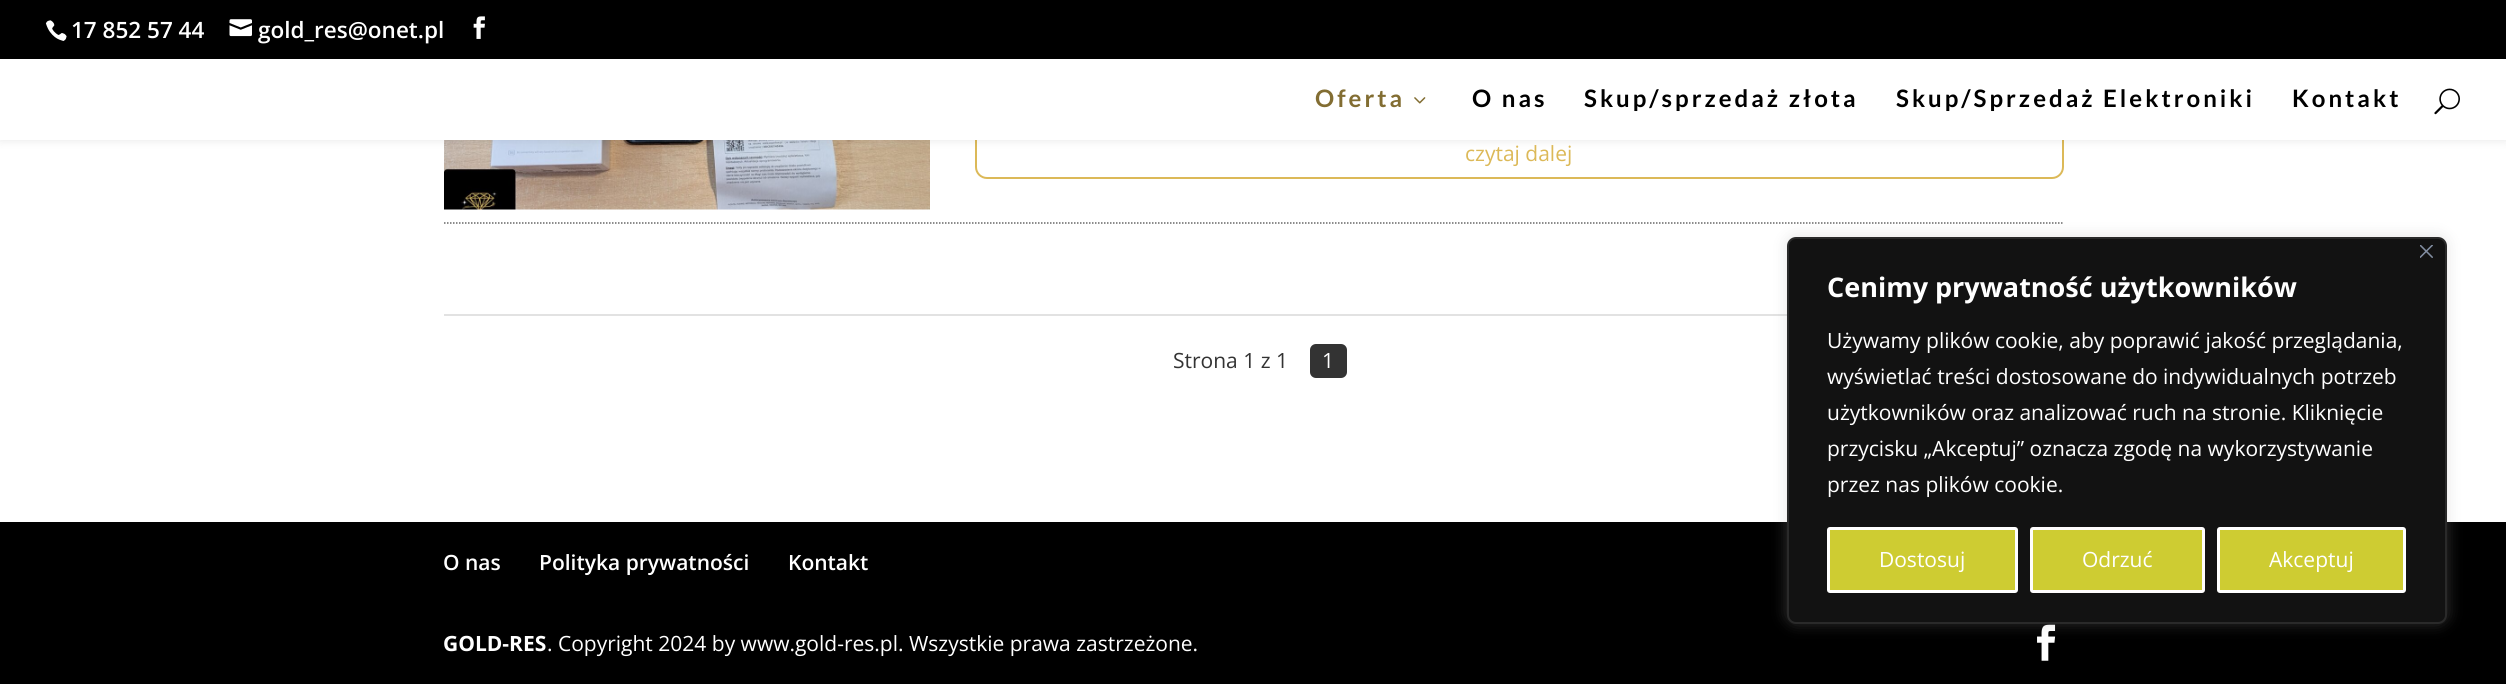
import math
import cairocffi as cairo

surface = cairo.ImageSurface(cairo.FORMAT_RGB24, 2506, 684)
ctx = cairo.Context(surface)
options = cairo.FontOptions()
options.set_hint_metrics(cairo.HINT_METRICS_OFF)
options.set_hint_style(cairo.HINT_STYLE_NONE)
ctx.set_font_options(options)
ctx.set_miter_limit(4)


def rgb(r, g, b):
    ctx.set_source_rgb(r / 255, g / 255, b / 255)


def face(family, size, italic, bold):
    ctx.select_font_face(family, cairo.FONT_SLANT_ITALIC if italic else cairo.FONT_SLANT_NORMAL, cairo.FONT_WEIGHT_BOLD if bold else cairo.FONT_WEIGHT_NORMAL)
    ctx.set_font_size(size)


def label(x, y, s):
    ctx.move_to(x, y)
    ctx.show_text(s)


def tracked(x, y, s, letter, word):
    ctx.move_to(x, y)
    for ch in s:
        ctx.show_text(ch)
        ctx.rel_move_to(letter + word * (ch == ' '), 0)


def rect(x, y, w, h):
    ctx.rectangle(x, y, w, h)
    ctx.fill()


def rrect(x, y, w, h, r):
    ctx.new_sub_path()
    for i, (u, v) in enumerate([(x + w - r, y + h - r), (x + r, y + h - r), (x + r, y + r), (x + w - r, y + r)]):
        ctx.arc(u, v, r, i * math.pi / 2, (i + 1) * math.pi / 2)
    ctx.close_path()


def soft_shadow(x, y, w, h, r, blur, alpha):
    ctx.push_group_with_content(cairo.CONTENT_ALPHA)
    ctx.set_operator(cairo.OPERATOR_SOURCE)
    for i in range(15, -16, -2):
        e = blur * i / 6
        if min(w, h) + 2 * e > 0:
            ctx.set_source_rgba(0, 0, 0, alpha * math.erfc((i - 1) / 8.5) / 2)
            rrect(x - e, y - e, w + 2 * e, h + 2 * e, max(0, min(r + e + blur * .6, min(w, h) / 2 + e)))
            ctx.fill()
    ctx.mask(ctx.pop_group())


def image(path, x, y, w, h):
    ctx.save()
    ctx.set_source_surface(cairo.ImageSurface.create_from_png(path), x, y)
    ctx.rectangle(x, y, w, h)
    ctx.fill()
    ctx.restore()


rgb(255, 255, 255)
ctx.paint()
image('image5.png', 444, 140, 486, 70)
rrect(976, 129, 1087, 49, 11)
rgb(220, 185, 88)
ctx.stroke()
rgb(0, 0, 0)
soft_shadow(0, 59, 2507, 81, 0, 5, 0.1)
rgb(0, 0, 0)
rect(0, 0, 2506, 59)
image('image0.png', 45, 20, 22, 21)
face('Open Sans SemiBold', 22.5, 0, 0)
rgb(255, 255, 255)
label(71, 38, '17 852 57 44')
image('image1.png', 229, 19, 23, 18)
label(258, 38, 'gold_res@onet.pl')
image('image2.png', 473, 16, 12, 23)
rect(0, 59, 2506, 81)
face('Lato', 24, 0, 1)
rgb(130, 109, 50)
tracked(1315, 107, 'Oferta', 3, 0)
image('image3.png', 1414, 97, 12, 7)
rgb(0, 0, 0)
tracked(1472, 107, 'O nas', 3, 0)
tracked(1584, 107, 'Skup/sprzedaż złota', 3, 0)
tracked(1896, 107, 'Skup/Sprzedaż Elektroniki', 3, 0)
tracked(2292, 107, 'Kontakt', 3, 0)
image('image4.png', 2434, 88, 26, 27)
ctx.new_path()
ctx.move_to(444, 223)
ctx.line_to(2064, 223)
rgb(102, 102, 102)
ctx.set_line_width(1.5)
ctx.set_dash([1.5, 1.5])
ctx.stroke()
face('Open Sans', 21, 0, 0)
rgb(220, 185, 88)
label(1465, 161, 'czytaj dalej')
rgb(226, 226, 226)
rect(444, 314, 1343, 2)
rgb(51, 51, 51)
label(1173, 368, 'Strona 1 z 1')
rrect(1310, 344, 37, 34, 6)
ctx.fill()
rgb(255, 255, 255)
label(1322, 368, '1')
rgb(0, 0, 0)
rect(0, 522, 2506, 162)
face('Open Sans SemiBold', 21, 0, 0)
rgb(255, 255, 255)
label(443, 570, 'O nas')
label(539, 570, 'Polityka prywatności')
label(788, 570, 'Kontakt')
face('Open Sans', 21, 0, 1)
label(443, 651, 'GOLD-RES')
face('Open Sans', 21, 0, 0)
label(547, 651, '. Copyright 2024 by www.gold-res.pl. Wszystkie prawa zastrzeżone.')
image('image6.png', 2037, 624, 19, 37)
rgb(172, 171, 171)
soft_shadow(1787, 236, 660, 387, 9, 7.5, 0.3)
rgb(18, 18, 18)
rrect(1788, 238, 658, 385, 8)
ctx.fill_preserve()
rgb(42, 42, 42)
ctx.set_line_width(2)
ctx.set_dash([])
ctx.stroke()
image('image7.png', 2420, 245, 13, 13)
face('Open Sans', 27, 0, 1)
rgb(255, 255, 255)
label(1827, 297, 'Cenimy prywatność użytkowników')
face('Open Sans', 21, 0, 0)
label(1827, 348, 'Używamy plików cookie, aby poprawić jakość przeglądania,')
label(1827, 384, 'wyświetlać treści dostosowane do indywidualnych potrzeb')
label(1827, 420, 'użytkowników oraz analizować ruch na stronie. Kliknięcie')
label(1827, 456, 'przycisku „Akceptuj” oznacza zgodę na wykorzystywanie')
label(1827, 492, 'przez nas plików cookie.')
rgb(206, 204, 50)
rrect(1828.5, 528.5, 188, 63, 1.5)
ctx.fill_preserve()
rgb(255, 255, 255)
ctx.set_line_width(3)
ctx.stroke()
label(1879, 567, 'Dostosuj')
rgb(206, 204, 50)
rrect(2031.5, 528.5, 172, 63, 1.5)
ctx.fill_preserve()
rgb(255, 253, 253)
ctx.stroke()
rgb(255, 255, 255)
label(2082, 567, 'Odrzuć')
rgb(206, 204, 50)
rrect(2218.5, 528.5, 186, 63, 1.5)
ctx.fill_preserve()
rgb(255, 255, 255)
ctx.stroke()
label(2269, 567, 'Akceptuj')
surface.write_to_png('render.png')
